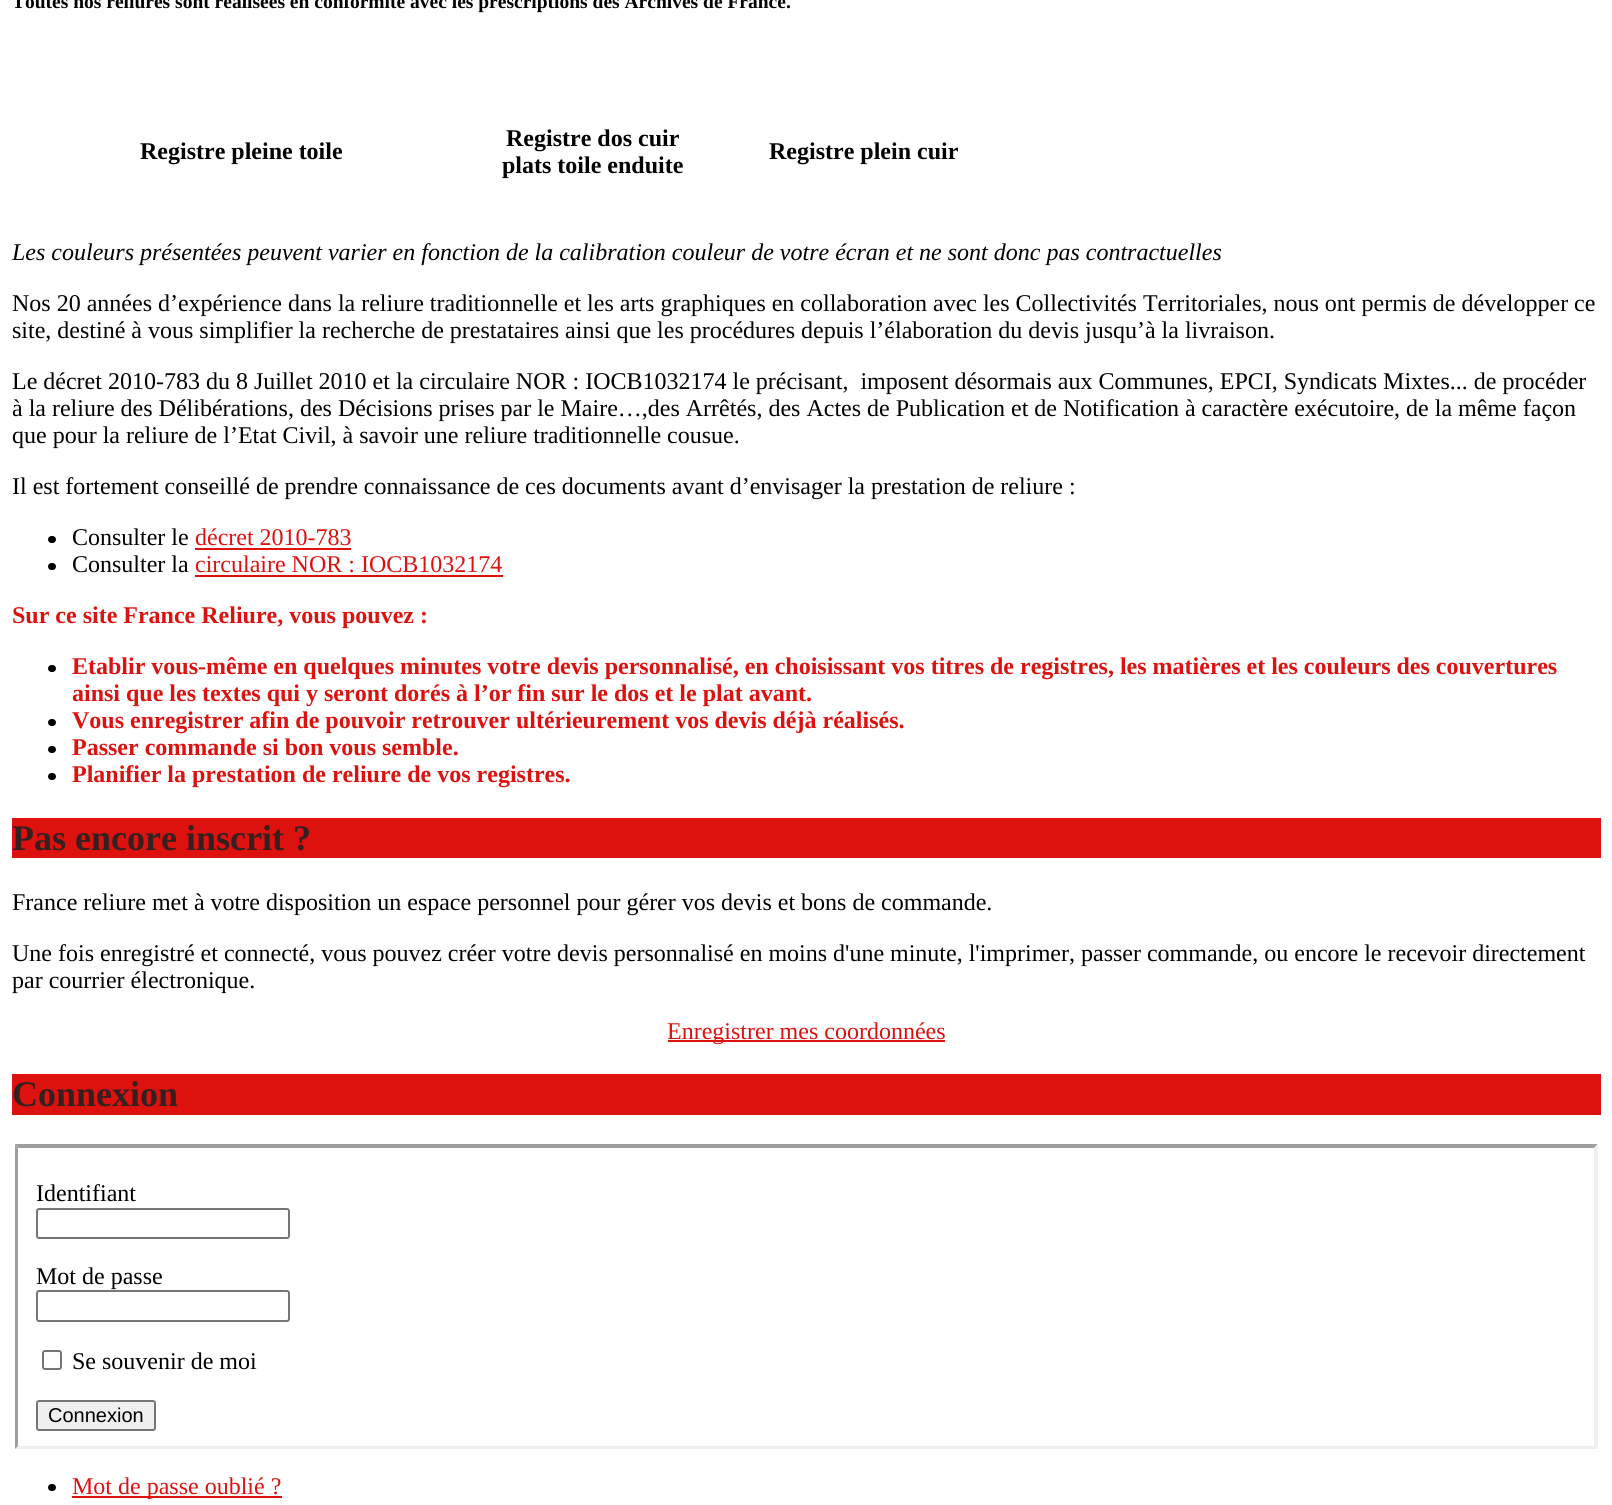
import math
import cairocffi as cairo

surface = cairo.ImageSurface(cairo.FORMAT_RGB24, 1612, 1505)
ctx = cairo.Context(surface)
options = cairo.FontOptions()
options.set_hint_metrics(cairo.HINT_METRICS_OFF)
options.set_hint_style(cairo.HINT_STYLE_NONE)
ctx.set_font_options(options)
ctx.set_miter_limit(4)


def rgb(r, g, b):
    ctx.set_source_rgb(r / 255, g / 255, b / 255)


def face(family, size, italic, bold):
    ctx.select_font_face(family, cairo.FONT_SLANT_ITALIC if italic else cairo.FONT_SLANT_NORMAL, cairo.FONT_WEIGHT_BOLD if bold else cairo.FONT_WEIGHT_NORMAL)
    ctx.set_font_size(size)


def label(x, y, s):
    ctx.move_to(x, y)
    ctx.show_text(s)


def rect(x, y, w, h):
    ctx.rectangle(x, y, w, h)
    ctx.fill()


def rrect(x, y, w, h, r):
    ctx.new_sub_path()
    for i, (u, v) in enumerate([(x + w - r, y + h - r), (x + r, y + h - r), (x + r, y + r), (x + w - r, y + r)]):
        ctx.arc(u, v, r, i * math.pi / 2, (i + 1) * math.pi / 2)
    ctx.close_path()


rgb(255, 255, 255)
ctx.paint()
face('Liberation Serif', 19.5, 0, 1)
rgb(0, 0, 0)
label(12, 8, 'Toutes nos reliures sont réalisées en conformité avec les prescriptions des Archives de France.')
face('Liberation Serif', 24, 0, 1)
label(140, 159, 'Registre pleine toile')
label(506, 146, 'Registre dos cuir')
label(502, 173, 'plats toile enduite')
label(769, 159, 'Registre plein cuir')
face('Liberation Serif', 24, 1, 0)
label(12, 260, 'Les couleurs présentées peuvent varier en fonction de la calibration couleur de votre écran et ne sont donc pas contractuelles')
face('Liberation Serif', 24, 0, 0)
label(12, 311, 'Nos 20 années d’expérience dans la reliure traditionnelle et les arts graphiques en collaboration avec les Collectivités Territoriales, nous ont permis de développer ce')
label(12, 338, 'site, destiné à vous simplifier la recherche de prestataires ainsi que les procédures depuis l’élaboration du devis jusqu’à la livraison.')
label(12, 389, 'Le décret 2010-783 du 8 Juillet 2010 et la circulaire NOR : IOCB1032174 le précisant,  imposent désormais aux Communes, EPCI, Syndicats Mixtes... de procéder')
label(12, 416, 'à la reliure des Délibérations, des Décisions prises par le Maire…,des Arrêtés, des Actes de Publication et de Notification à caractère exécutoire, de la même façon')
label(12, 443, 'que pour la reliure de l’Etat Civil, à savoir une reliure traditionnelle cousue.')
label(12, 494, 'Il est fortement conseillé de prendre connaissance de ces documents avant d’envisager la prestation de reliure :')
rrect(48, 536, 8, 7, 3.5)
ctx.fill()
label(72, 545, 'Consulter le')
rgb(221, 17, 14)
label(195, 545, 'décret 2010-783')
rect(195, 548, 156, 2)
rgb(0, 0, 0)
rrect(48, 563, 8, 7, 3.5)
ctx.fill()
label(72, 572, 'Consulter la')
rgb(221, 17, 14)
label(195, 572, 'circulaire NOR : IOCB1032174')
rect(195, 575, 308, 2)
face('Liberation Serif', 24, 0, 1)
label(12, 623, 'Sur ce site France Reliure, vous pouvez :')
rgb(0, 0, 0)
rrect(48, 665, 8, 7, 3.5)
ctx.fill()
rgb(221, 17, 14)
label(72, 674, 'Etablir vous-même en quelques minutes votre devis personnalisé, en choisissant vos titres de registres, les matières et les couleurs des couvertures')
label(72, 701, 'ainsi que les textes qui y seront dorés à l’or fin sur le dos et le plat avant.')
rgb(0, 0, 0)
rrect(48, 719, 8, 7, 3.5)
ctx.fill()
rgb(221, 17, 14)
label(72, 728, 'Vous enregistrer afin de pouvoir retrouver ultérieurement vos devis déjà réalisés.')
rgb(0, 0, 0)
rrect(48, 746, 8, 7, 3.5)
ctx.fill()
rgb(221, 17, 14)
label(72, 755, 'Passer commande si bon vous semble.')
rgb(0, 0, 0)
rrect(48, 773, 8, 7, 3.5)
ctx.fill()
rgb(221, 17, 14)
label(72, 782, 'Planifier la prestation de reliure de vos registres.')
rect(12, 818, 1589, 40)
face('Liberation Serif', 36, 0, 1)
rgb(53, 32, 32)
label(12, 850, 'Pas encore inscrit ?')
face('Liberation Serif', 24, 0, 0)
rgb(0, 0, 0)
label(12, 910, 'France reliure met à votre disposition un espace personnel pour gérer vos devis et bons de commande.')
label(12, 961, 'Une fois enregistré et connecté, vous pouvez créer votre devis personnalisé en moins d\'une minute, l\'imprimer, passer commande, ou encore le recevoir directement')
label(12, 988, 'par courrier électronique.')
rgb(221, 17, 14)
rect(668, 1040, 277, 2)
label(667, 1039, 'Enregistrer mes coordonnées')
rect(12, 1074, 1589, 41)
face('Liberation Serif', 36, 0, 1)
rgb(53, 32, 32)
label(12, 1106, 'Connexion')
rgb(159, 159, 159)
ctx.new_path()
ctx.move_to(15, 1144)
ctx.line_to(1598, 1144)
ctx.line_to(1594, 1148)
ctx.line_to(18, 1148)
ctx.close_path()
ctx.fill()
rgb(239, 239, 239)
ctx.new_path()
ctx.move_to(1598, 1144)
ctx.line_to(1598, 1449)
ctx.line_to(1594, 1446)
ctx.line_to(1594, 1148)
ctx.close_path()
ctx.fill()
ctx.new_path()
ctx.move_to(1598, 1449)
ctx.line_to(15, 1449)
ctx.line_to(18, 1446)
ctx.line_to(1594, 1446)
ctx.close_path()
ctx.fill()
rgb(159, 159, 159)
ctx.new_path()
ctx.move_to(15, 1449)
ctx.line_to(15, 1144)
ctx.line_to(18, 1148)
ctx.line_to(18, 1446)
ctx.close_path()
ctx.fill()
face('Liberation Serif', 24, 0, 0)
rgb(0, 0, 0)
label(36, 1201, 'Identifiant')
rrect(37, 1209, 252, 29, 2)
rgb(118, 118, 118)
ctx.stroke()
rgb(0, 0, 0)
label(36, 1284, 'Mot de passe')
rrect(37, 1291, 252, 30, 2)
rgb(118, 118, 118)
ctx.stroke()
rrect(43, 1351, 18, 18, 2)
ctx.stroke()
rgb(0, 0, 0)
label(72, 1369, 'Se souvenir de moi')
rgb(239, 239, 239)
rrect(37, 1401, 118, 29, 2)
ctx.fill_preserve()
rgb(118, 118, 118)
ctx.stroke()
face('Liberation Sans', 20, 0, 0)
rgb(0, 0, 0)
label(48, 1422, 'Connexion')
rrect(48, 1484, 8, 7, 3.5)
ctx.fill()
rgb(221, 17, 14)
rect(72, 1496, 210, 2)
face('Liberation Serif', 24, 0, 0)
label(72, 1494, 'Mot de passe oublié ?')
surface.write_to_png('render.png')
